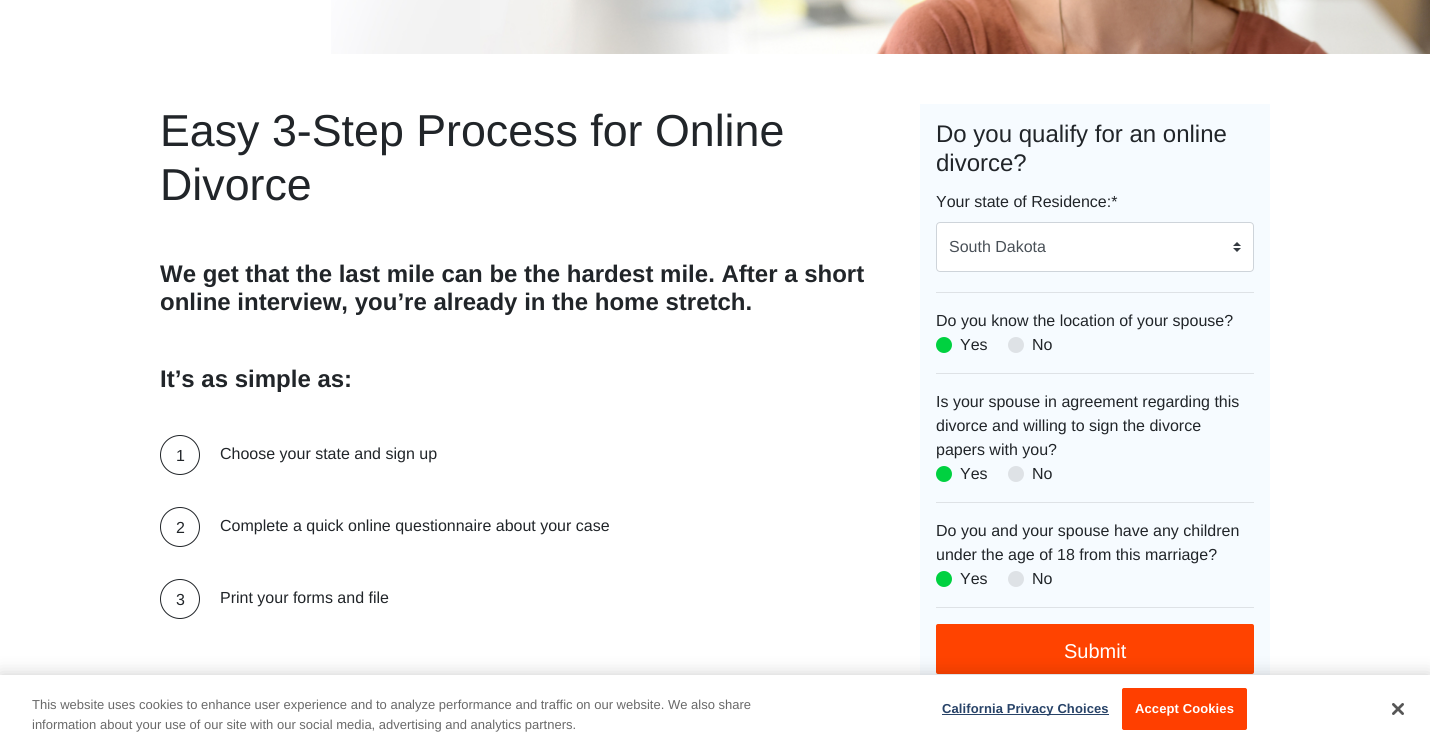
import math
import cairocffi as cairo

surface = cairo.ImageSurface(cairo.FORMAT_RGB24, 1430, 746)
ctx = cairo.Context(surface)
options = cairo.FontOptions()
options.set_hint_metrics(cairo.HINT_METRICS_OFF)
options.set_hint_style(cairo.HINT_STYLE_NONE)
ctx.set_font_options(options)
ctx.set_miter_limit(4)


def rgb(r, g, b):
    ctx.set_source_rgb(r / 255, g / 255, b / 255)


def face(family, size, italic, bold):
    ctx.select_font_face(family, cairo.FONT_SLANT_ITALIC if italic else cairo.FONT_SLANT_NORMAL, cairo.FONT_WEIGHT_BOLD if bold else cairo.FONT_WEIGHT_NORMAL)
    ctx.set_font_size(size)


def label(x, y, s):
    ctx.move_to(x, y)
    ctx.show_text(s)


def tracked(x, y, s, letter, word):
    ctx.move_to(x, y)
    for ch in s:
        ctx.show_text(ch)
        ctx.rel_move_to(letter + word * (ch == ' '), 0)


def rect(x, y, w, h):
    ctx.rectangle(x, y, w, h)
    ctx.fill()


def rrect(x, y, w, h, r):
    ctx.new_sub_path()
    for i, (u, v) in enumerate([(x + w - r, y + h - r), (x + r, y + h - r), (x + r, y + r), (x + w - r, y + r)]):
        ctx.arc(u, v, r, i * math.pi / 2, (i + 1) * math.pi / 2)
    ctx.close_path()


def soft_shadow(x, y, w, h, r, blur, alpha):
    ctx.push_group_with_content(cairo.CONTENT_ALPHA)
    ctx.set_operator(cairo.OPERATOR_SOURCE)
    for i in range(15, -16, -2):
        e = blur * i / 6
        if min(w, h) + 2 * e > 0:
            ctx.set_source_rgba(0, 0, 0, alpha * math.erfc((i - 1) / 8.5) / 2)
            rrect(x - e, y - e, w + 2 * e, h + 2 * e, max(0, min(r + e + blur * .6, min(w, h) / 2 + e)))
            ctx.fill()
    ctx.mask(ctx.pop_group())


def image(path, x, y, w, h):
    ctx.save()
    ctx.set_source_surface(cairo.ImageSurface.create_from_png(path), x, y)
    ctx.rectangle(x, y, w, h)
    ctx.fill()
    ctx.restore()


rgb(255, 255, 255)
ctx.paint()
image('image0.png', 331, 0, 1099, 54)
face('Liberation Sans', 44.75, 0, 0)
rgb(33, 37, 41)
label(160, 146, 'Easy 3-Step Process for Online')
label(160, 200, 'Divorce')
face('Liberation Sans', 24, 0, 1)
label(160, 282, 'We get that the last mile can be the hardest mile. After a short')
label(160, 310, 'online interview, you’re already in the home stretch.')
label(160, 387, 'It’s as simple as:')
ctx.new_path()
ctx.arc(180, 455, 19.5, 0, 2 * math.pi)
ctx.set_line_width(1)
ctx.stroke()
face('Liberation Sans', 16, 0, 0)
label(176, 461, '1')
label(220, 459, 'Choose your state and sign up')
ctx.new_path()
ctx.arc(180, 527, 19.5, 0, 2 * math.pi)
ctx.stroke()
label(176, 533, '2')
label(220, 531, 'Complete a quick online questionnaire about your case')
ctx.new_path()
ctx.arc(180, 599, 19.5, 0, 2 * math.pi)
ctx.stroke()
label(176, 605, '3')
label(220, 603, 'Print your forms and file')
rgb(246, 251, 255)
rect(920, 104, 350, 571)
face('Liberation Sans', 24, 0, 0)
rgb(33, 37, 41)
label(936, 142, 'Do you qualify for an online')
label(936, 171, 'divorce?')
rgb(222, 226, 230)
rect(936, 292, 318, 1)
face('Liberation Sans', 16, 0, 0)
rgb(33, 37, 41)
label(936, 207, 'Your state of Residence:*')
rgb(255, 255, 255)
rrect(936, 222, 318, 50, 4)
ctx.fill()
image('image1.png', 1233, 242, 8, 10)
rrect(936.5, 222.5, 317, 49, 3.5)
rgb(206, 212, 218)
ctx.stroke()
rgb(73, 80, 87)
label(949, 252, 'South Dakota')
rgb(222, 226, 230)
rect(936, 373, 318, 1)
rgb(33, 37, 41)
label(936, 326, 'Do you know the location of your spouse?')
rgb(0, 209, 64)
ctx.new_path()
ctx.arc(944, 345, 8, 0, 2 * math.pi)
ctx.fill()
rgb(33, 37, 41)
label(960, 350, 'Yes')
rgb(222, 226, 230)
ctx.new_path()
ctx.arc(1016, 345, 8, 0, 2 * math.pi)
ctx.fill()
rgb(33, 37, 41)
label(1032, 350, 'No')
rgb(222, 226, 230)
rect(936, 502, 318, 1)
rgb(33, 37, 41)
label(936, 407, 'Is your spouse in agreement regarding this')
label(936, 431, 'divorce and willing to sign the divorce')
label(936, 455, 'papers with you?')
rgb(0, 209, 64)
ctx.new_path()
ctx.arc(944, 474, 8, 0, 2 * math.pi)
ctx.fill()
rgb(33, 37, 41)
label(960, 479, 'Yes')
rgb(222, 226, 230)
ctx.new_path()
ctx.arc(1016, 474, 8, 0, 2 * math.pi)
ctx.fill()
rgb(33, 37, 41)
label(1032, 479, 'No')
rgb(222, 226, 230)
rect(936, 607, 318, 1)
rgb(33, 37, 41)
label(936, 536, 'Do you and your spouse have any children')
label(936, 560, 'under the age of 18 from this marriage?')
rgb(0, 209, 64)
ctx.new_path()
ctx.arc(944, 579, 8, 0, 2 * math.pi)
ctx.fill()
rgb(33, 37, 41)
label(960, 584, 'Yes')
rgb(222, 226, 230)
ctx.new_path()
ctx.arc(1016, 579, 8, 0, 2 * math.pi)
ctx.fill()
rgb(33, 37, 41)
label(1032, 584, 'No')
rgb(255, 67, 0)
rrect(936, 624, 318, 50, 2)
ctx.fill()
face('Liberation Sans', 20, 0, 0)
rgb(255, 255, 255)
label(1064, 658, 'Submit')
rgb(0, 0, 0)
soft_shadow(0, 675, 1430, 71, 0, 9, 0.2)
rgb(255, 255, 255)
rect(0, 675, 1430, 71)
face('Liberation Sans', 13, 0, 0)
rgb(105, 105, 105)
label(32, 709, 'This website uses cookies to enhance user experience and to analyze performance and traffic on our website. We also share')
label(32, 729, 'information about your use of our site with our social media, advertising and analytics partners.')
rgb(40, 67, 104)
rect(942, 714, 167, 1)
face('Liberation Sans', 13, 0, 1)
tracked(942, 713, 'California Privacy Choices', 0.1, 0)
rgb(255, 63, 0)
rrect(1122.5, 688.5, 124, 41, 1.5)
ctx.fill_preserve()
ctx.stroke()
rgb(255, 255, 255)
tracked(1135, 713, 'Accept Cookies', 0.1, 0)
image('image2.png', 1392, 703, 12, 12)
surface.write_to_png('render.png')
